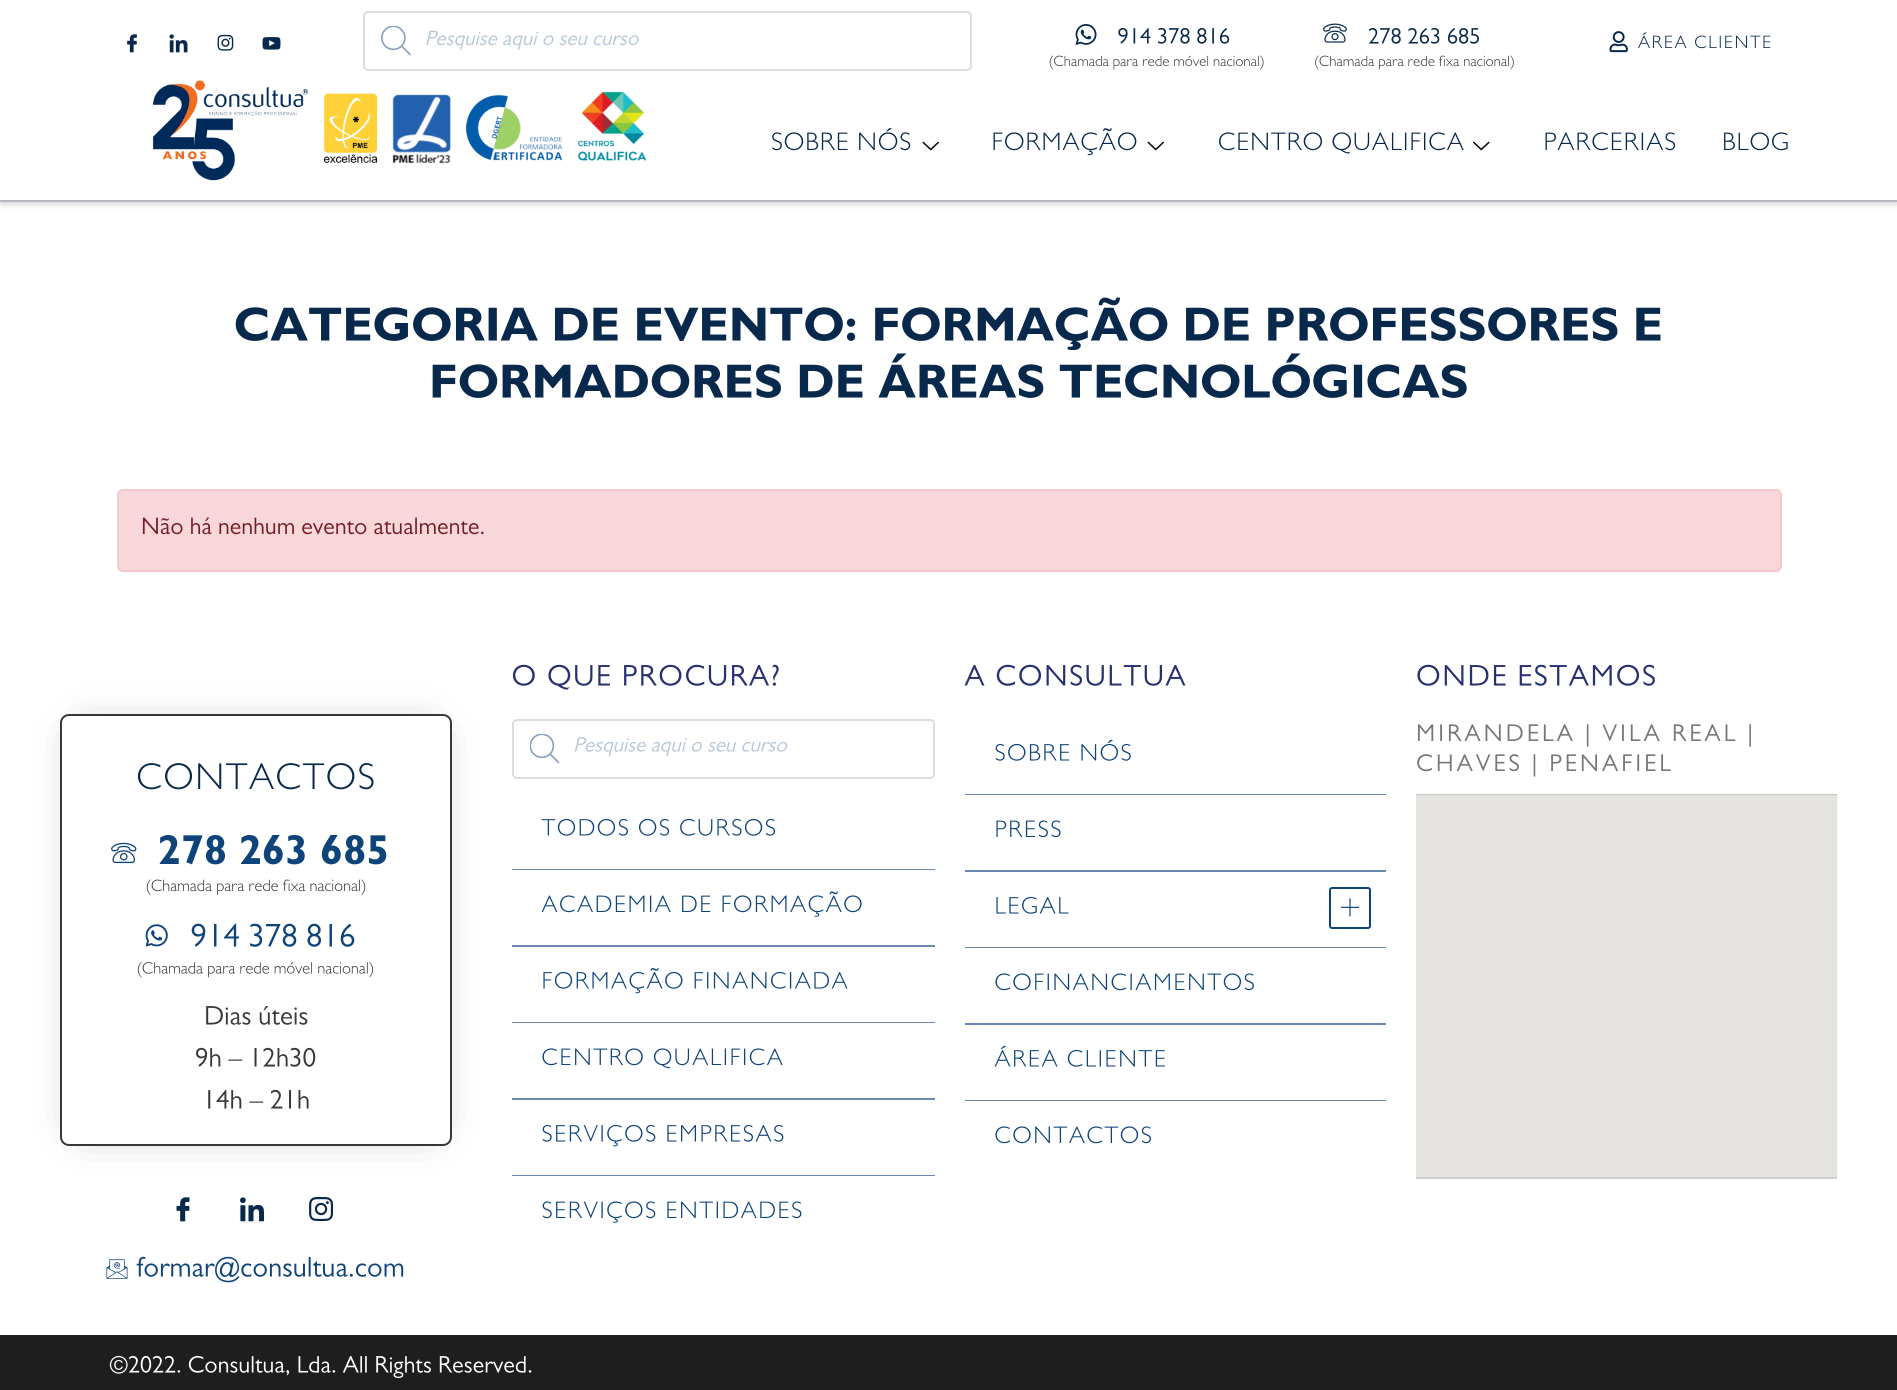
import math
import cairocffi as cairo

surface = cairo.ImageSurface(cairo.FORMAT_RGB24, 1897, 1390)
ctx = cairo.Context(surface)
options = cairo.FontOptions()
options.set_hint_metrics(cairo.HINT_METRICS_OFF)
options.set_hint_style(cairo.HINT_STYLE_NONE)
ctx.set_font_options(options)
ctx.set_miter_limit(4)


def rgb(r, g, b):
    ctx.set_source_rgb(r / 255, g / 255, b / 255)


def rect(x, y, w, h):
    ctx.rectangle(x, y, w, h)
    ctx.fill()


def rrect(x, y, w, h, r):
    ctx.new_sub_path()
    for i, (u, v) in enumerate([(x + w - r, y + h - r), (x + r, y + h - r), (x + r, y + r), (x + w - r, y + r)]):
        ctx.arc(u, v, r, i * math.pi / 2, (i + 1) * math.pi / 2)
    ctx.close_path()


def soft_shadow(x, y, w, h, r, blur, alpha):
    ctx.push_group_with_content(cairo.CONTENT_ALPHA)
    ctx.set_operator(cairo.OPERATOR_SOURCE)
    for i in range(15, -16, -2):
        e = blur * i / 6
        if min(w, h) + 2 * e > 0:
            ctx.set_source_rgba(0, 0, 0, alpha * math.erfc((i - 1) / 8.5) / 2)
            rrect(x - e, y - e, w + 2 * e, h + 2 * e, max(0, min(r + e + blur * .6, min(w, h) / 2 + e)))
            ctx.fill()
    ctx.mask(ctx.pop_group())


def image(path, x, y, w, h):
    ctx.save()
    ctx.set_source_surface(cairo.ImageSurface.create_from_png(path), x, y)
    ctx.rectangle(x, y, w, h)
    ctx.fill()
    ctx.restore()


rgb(255, 255, 255)
ctx.paint()
rgb(0, 0, 0)
soft_shadow(0, -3, 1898, 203, 0, 5, 0.39)
rgb(255, 255, 255)
rect(0, 0, 1897, 200)
image('image0.png', 127, 34, 10, 19)
image('image1.png', 169, 34, 19, 19)
image('image2.png', 217, 34, 17, 17)
image('image3.png', 262, 37, 19, 13)
rrect(364, 12, 607, 58, 4)
rgb(221, 221, 221)
ctx.stroke()
image('image4.png', 426, 30, 213, 20)
image('image5.png', 381, 26, 30, 30)
image('image6.png', 1075, 24, 22, 21)
image('image7.png', 1118, 27, 112, 17)
image('image8.png', 1049, 55, 215, 15)
image('image9.png', 1323, 23, 24, 20)
image('image10.png', 1368, 28, 111, 16)
image('image11.png', 1315, 55, 199, 15)
image('image12.png', 1609, 31, 19, 22)
image('image13.png', 1638, 32, 133, 17)
image('image14.png', 152, 80, 495, 101)
image('image15.png', 772, 128, 139, 23)
image('image16.png', 922, 141, 17, 10)
image('image17.png', 993, 128, 144, 28)
image('image16.png', 1147, 141, 17, 10)
image('image18.png', 1219, 132, 245, 22)
image('image19.png', 1473, 141, 17, 10)
image('image20.png', 1545, 132, 131, 19)
image('image21.png', 1724, 132, 64, 19)
ctx.set_source_rgba(0.031, 0.161, 0.298, 0.17)
rect(0, 200, 1897, 2)
image('image22.png', 235, 307, 621, 34)
image('image23.png', 875, 297, 786, 54)
image('image24.png', 432, 353, 1035, 45)
rgb(248, 215, 218)
rrect(118, 490, 1663, 81, 5)
ctx.fill_preserve()
rgb(245, 198, 203)
ctx.stroke()
image('image25.png', 142, 517, 342, 18)
ctx.save()
ctx.set_fill_rule(cairo.FILL_RULE_EVEN_ODD)
ctx.new_path()
ctx.move_to(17, 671)
ctx.line_to(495, 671)
ctx.line_to(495, 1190)
ctx.line_to(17, 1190)
ctx.close_path()
ctx.move_to(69, 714)
ctx.line_to(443, 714)
ctx.curve_to(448, 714, 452, 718, 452, 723)
ctx.line_to(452, 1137)
ctx.curve_to(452, 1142, 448, 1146, 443, 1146)
ctx.line_to(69, 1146)
ctx.curve_to(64, 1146, 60, 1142, 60, 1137)
ctx.line_to(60, 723)
ctx.curve_to(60, 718, 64, 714, 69, 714)
ctx.close_path()
ctx.clip()
rgb(0, 0, 0)
soft_shadow(86, 740, 340, 381, 0, 22.5, 0.5)
ctx.restore()
rrect(61, 715, 390, 430, 8)
rgb(55, 56, 58)
ctx.stroke()
image('image26.png', 137, 763, 237, 27)
image('image27.png', 111, 842, 26, 22)
image('image28.png', 159, 835, 228, 30)
image('image29.png', 146, 879, 220, 16)
image('image30.png', 145, 924, 23, 23)
image('image31.png', 191, 923, 164, 24)
image('image32.png', 137, 962, 237, 16)
image('image33.png', 206, 1006, 102, 19)
image('image34.png', 196, 1047, 120, 20)
image('image35.png', 208, 1089, 101, 20)
image('image36.png', 176, 1197, 14, 25)
image('image37.png', 240, 1197, 24, 25)
image('image38.png', 309, 1197, 25, 24)
image('image39.png', 106, 1259, 22, 20)
image('image40.png', 136, 1256, 268, 27)
image('image41.png', 512, 664, 267, 26)
rrect(513, 720, 421, 58, 4)
rgb(221, 221, 221)
ctx.stroke()
image('image42.png', 574, 737, 214, 20)
image('image43.png', 530, 734, 30, 30)
rgb(106, 136, 178)
rect(512, 869, 423, 1)
image('image44.png', 541, 818, 234, 18)
rect(512, 945, 423, 2)
image('image45.png', 541, 891, 321, 26)
rect(512, 1022, 423, 1)
image('image46.png', 543, 967, 305, 27)
rect(512, 1098, 423, 2)
image('image47.png', 542, 1048, 241, 21)
rect(512, 1175, 423, 1)
image('image48.png', 542, 1124, 242, 23)
image('image49.png', 542, 1201, 260, 22)
image('image50.png', 964, 664, 222, 22)
rect(965, 794, 421, 1)
image('image51.png', 995, 739, 136, 22)
rect(965, 870, 421, 2)
image('image52.png', 996, 820, 65, 18)
rrect(1330, 888, 40, 40, 2)
rgb(15, 68, 123)
ctx.stroke()
image('image53.png', 1341, 898, 18, 19)
rgb(106, 136, 178)
rect(965, 947, 421, 1)
image('image54.png', 996, 896, 73, 18)
rect(965, 1023, 421, 2)
image('image55.png', 995, 973, 259, 18)
rect(965, 1100, 421, 1)
image('image56.png', 994, 1045, 171, 22)
image('image57.png', 995, 1126, 156, 18)
image('image58.png', 1417, 664, 238, 22)
image('image59.png', 1417, 724, 334, 23)
image('image60.png', 1417, 754, 254, 23)
image('image61.png', 1416, 793, 422, 386)
rgb(30, 30, 30)
rect(0, 1335, 1897, 55)
image('image62.png', 109, 1355, 423, 23)
surface.write_to_png('render.png')
